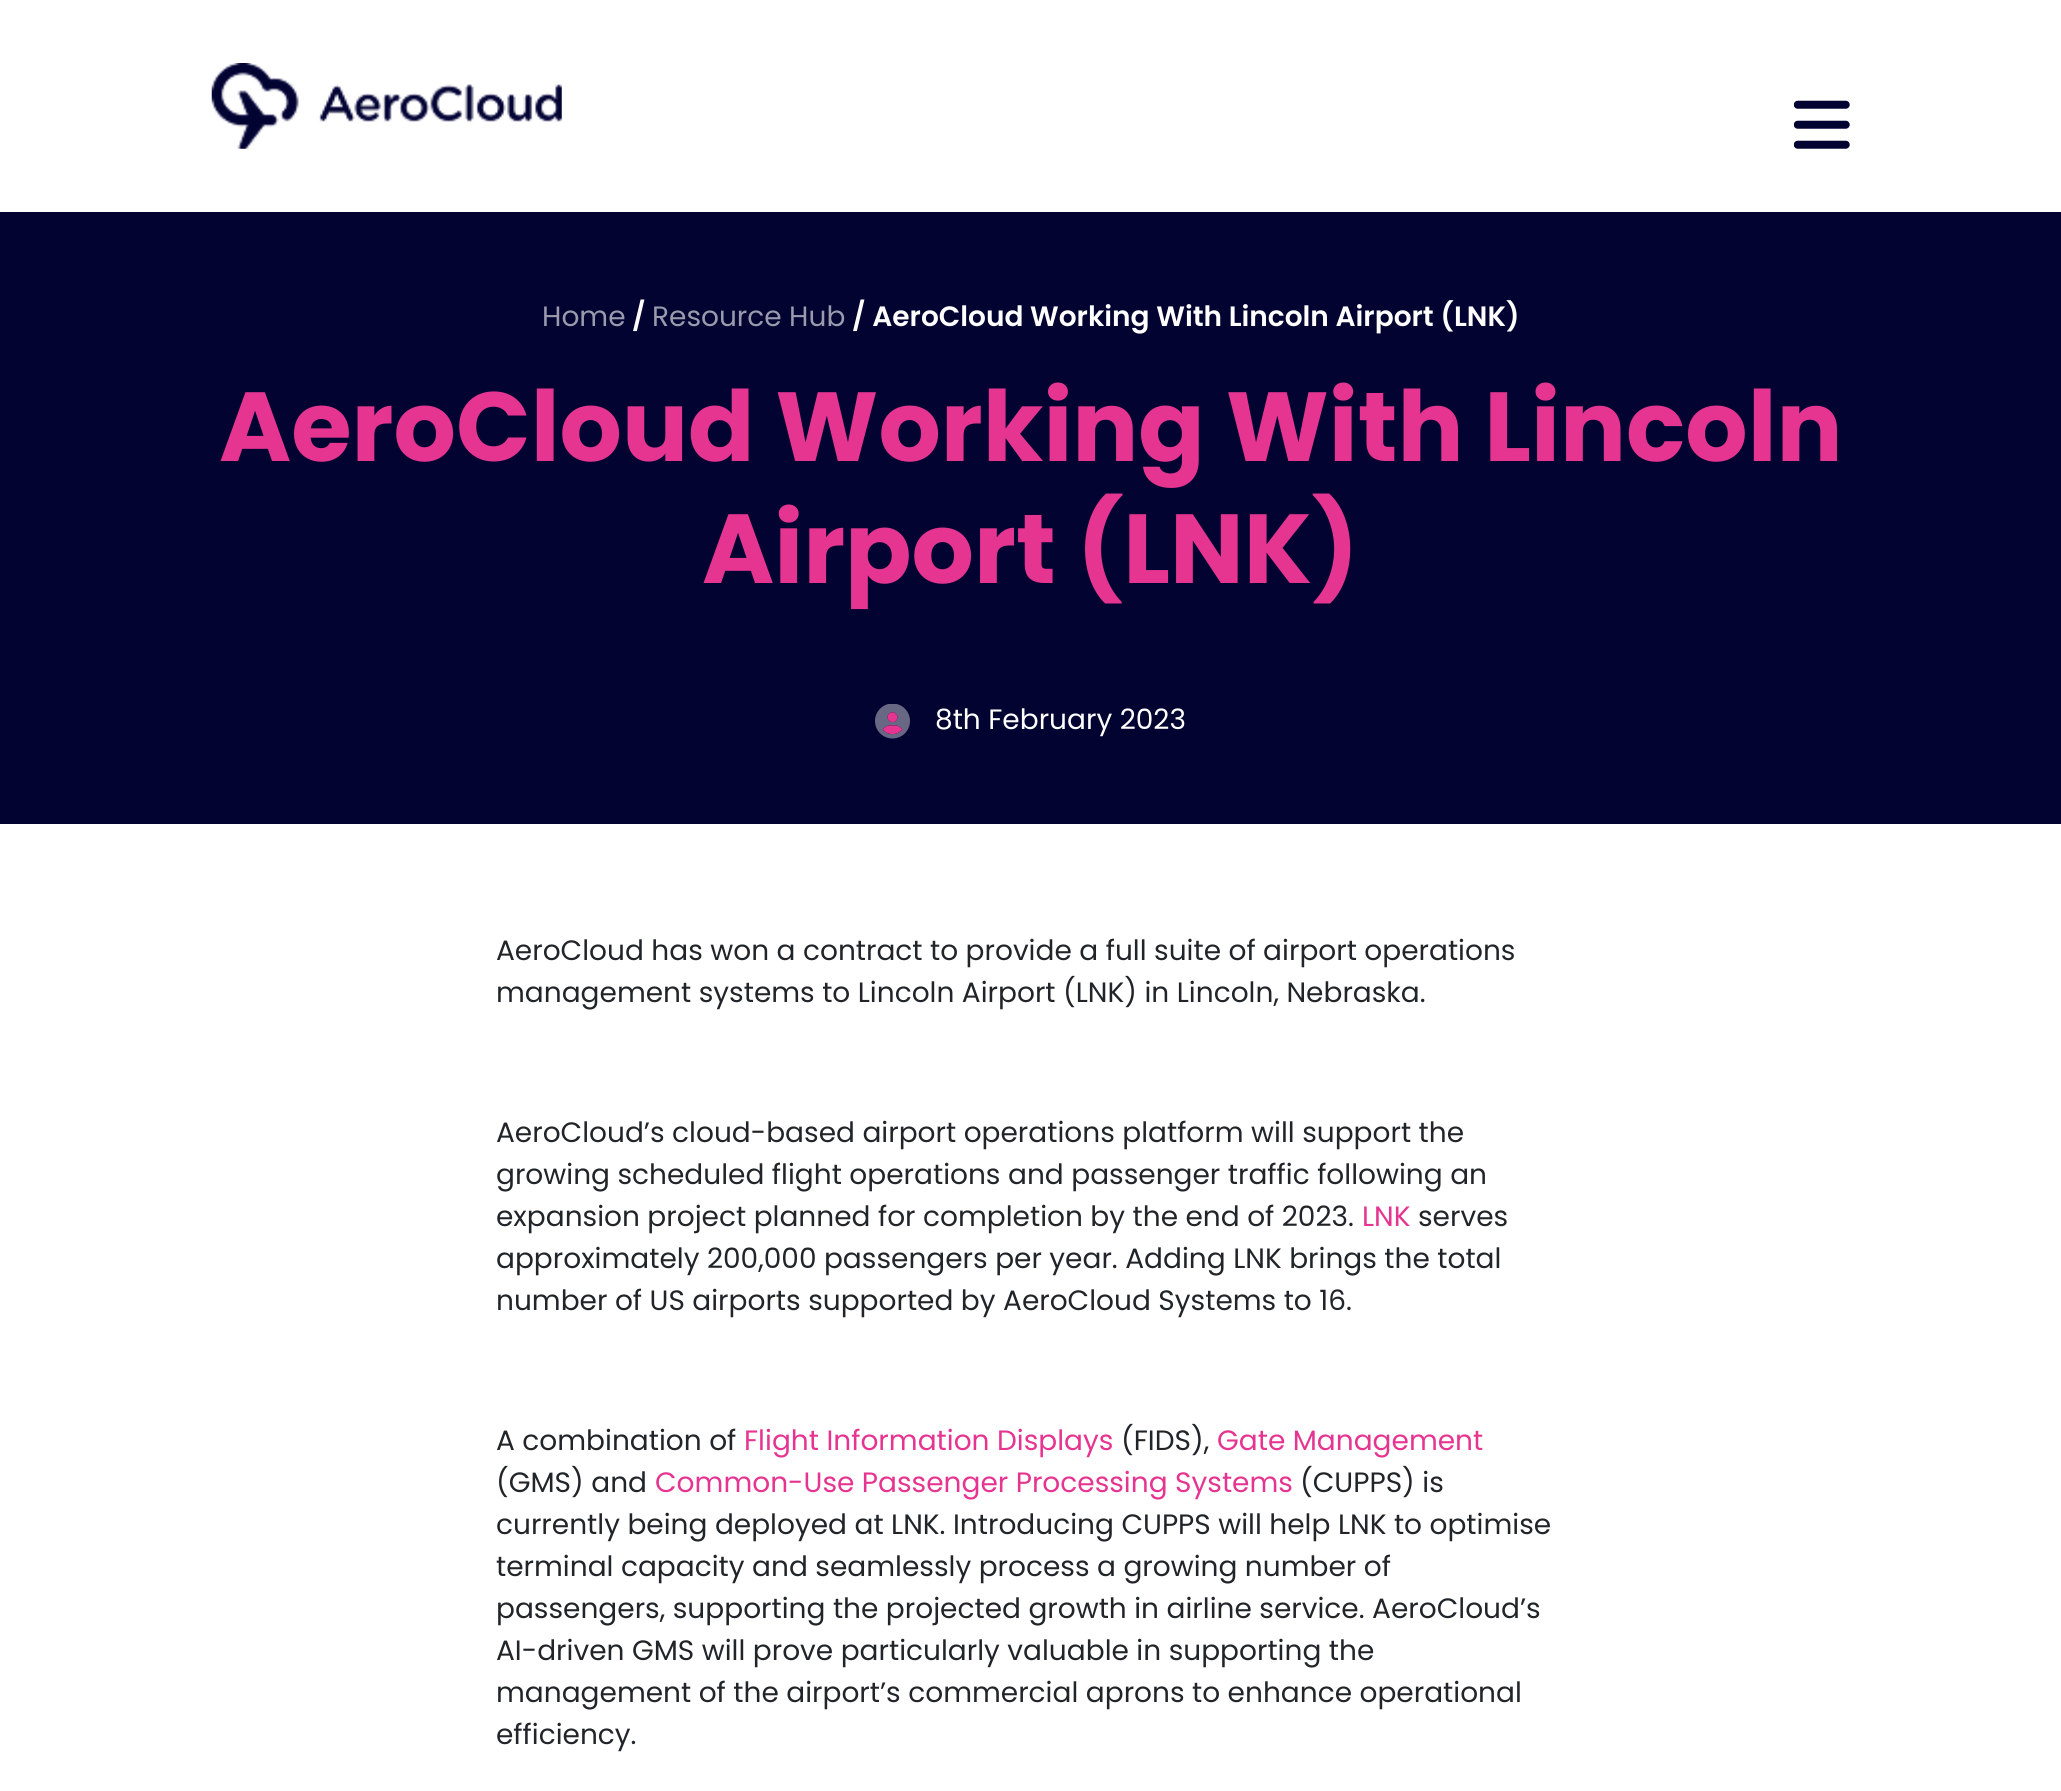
import math
import cairocffi as cairo

surface = cairo.ImageSurface(cairo.FORMAT_RGB24, 2061, 1791)
ctx = cairo.Context(surface)
options = cairo.FontOptions()
options.set_hint_metrics(cairo.HINT_METRICS_OFF)
options.set_hint_style(cairo.HINT_STYLE_NONE)
ctx.set_font_options(options)
ctx.set_miter_limit(4)


def rgb(r, g, b):
    ctx.set_source_rgb(r / 255, g / 255, b / 255)


def face(family, size, italic, bold):
    ctx.select_font_face(family, cairo.FONT_SLANT_ITALIC if italic else cairo.FONT_SLANT_NORMAL, cairo.FONT_WEIGHT_BOLD if bold else cairo.FONT_WEIGHT_NORMAL)
    ctx.set_font_size(size)


def label(x, y, s):
    ctx.move_to(x, y)
    ctx.show_text(s)


def rect(x, y, w, h):
    ctx.rectangle(x, y, w, h)
    ctx.fill()


def image(path, x, y, w, h):
    ctx.save()
    ctx.set_source_surface(cairo.ImageSurface.create_from_png(path), x, y)
    ctx.rectangle(x, y, w, h)
    ctx.fill()
    ctx.restore()


rgb(255, 255, 255)
ctx.paint()
image('image0.png', 211, 63, 351, 86)
image('image1.png', 1794, 100, 56, 49)
rgb(3, 3, 50)
rect(0, 212, 2061, 612)
face('Poppins', 28, 0, 0)
rgb(154, 154, 173)
label(542, 326, 'Home')
face('Poppins SemiBold', 28, 0, 0)
rgb(255, 255, 255)
label(632, 326, '/')
face('Poppins', 28, 0, 0)
rgb(154, 154, 173)
label(652, 326, 'Resource Hub')
face('Poppins SemiBold', 28, 0, 0)
rgb(255, 255, 255)
label(852, 326, '/ AeroCloud Working With Lincoln Airport (LNK)')
face('Poppins', 98, 0, 1)
rgb(230, 52, 145)
label(219, 461, 'AeroCloud Working With Lincoln')
label(702, 583, 'Airport (LNK)')
image('image2.png', 875, 704, 35, 35)
face('Poppins', 28, 0, 0)
rgb(255, 255, 255)
label(935, 729, '8th February 2023')
rgb(33, 37, 41)
label(496, 960, 'AeroCloud has won a contract to provide a full suite of airport operations')
label(496, 1002, 'management systems to Lincoln Airport (LNK) in Lincoln, Nebraska.')
label(496, 1142, 'AeroCloud’s cloud-based airport operations platform will support the')
label(496, 1184, 'growing scheduled flight operations and passenger traffic following an')
label(496, 1226, 'expansion project planned for completion by the end of 2023.')
rgb(230, 52, 145)
label(1362, 1226, 'LNK')
rgb(33, 37, 41)
label(1418, 1226, 'serves')
label(496, 1268, 'approximately 200,000 passengers per year. Adding LNK brings the total')
label(496, 1310, 'number of US airports supported by AeroCloud Systems to 16.')
label(496, 1450, 'A combination of')
rgb(230, 52, 145)
label(744, 1450, 'Flight Information Displays')
rgb(33, 37, 41)
label(1121, 1450, '(FIDS),')
rgb(230, 52, 145)
label(1217, 1450, 'Gate Management')
rgb(33, 37, 41)
label(496, 1492, '(GMS) and')
rgb(230, 52, 145)
label(655, 1492, 'Common-Use Passenger Processing Systems')
rgb(33, 37, 41)
label(1300, 1492, '(CUPPS) is')
label(496, 1534, 'currently being deployed at LNK. Introducing CUPPS will help LNK to optimise')
label(496, 1576, 'terminal capacity and seamlessly process a growing number of')
label(496, 1618, 'passengers, supporting the projected growth in airline service. AeroCloud’s')
label(496, 1660, 'AI-driven GMS will prove particularly valuable in supporting the')
label(496, 1702, 'management of the airport’s commercial aprons to enhance operational')
label(496, 1744, 'efficiency.')
surface.write_to_png('render.png')
